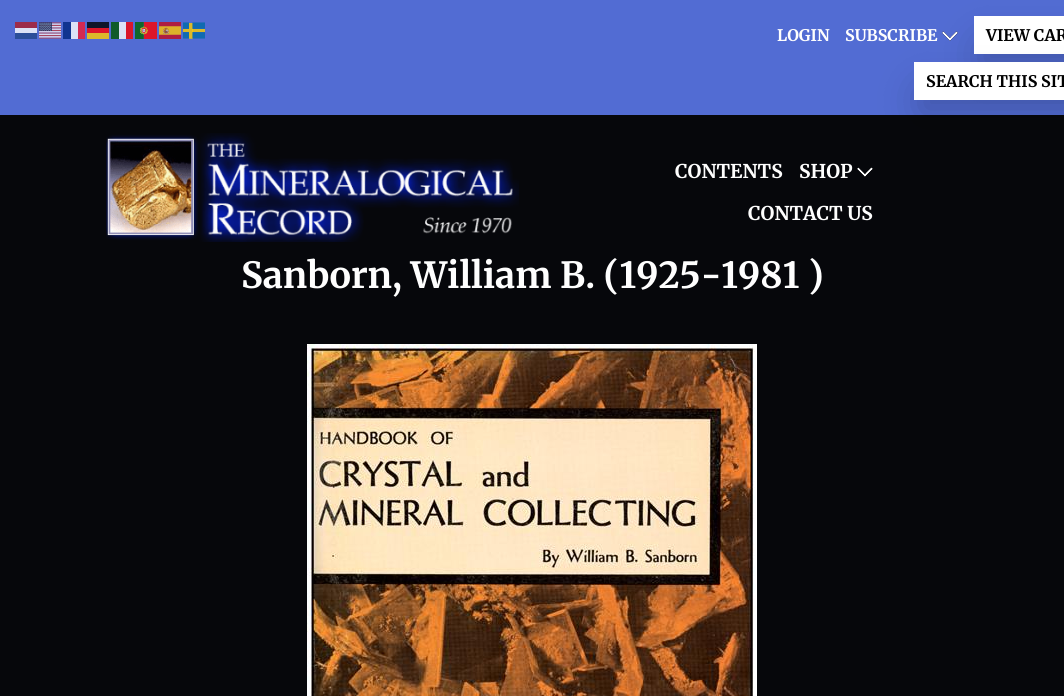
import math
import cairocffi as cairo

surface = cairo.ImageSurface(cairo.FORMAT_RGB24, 1064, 696)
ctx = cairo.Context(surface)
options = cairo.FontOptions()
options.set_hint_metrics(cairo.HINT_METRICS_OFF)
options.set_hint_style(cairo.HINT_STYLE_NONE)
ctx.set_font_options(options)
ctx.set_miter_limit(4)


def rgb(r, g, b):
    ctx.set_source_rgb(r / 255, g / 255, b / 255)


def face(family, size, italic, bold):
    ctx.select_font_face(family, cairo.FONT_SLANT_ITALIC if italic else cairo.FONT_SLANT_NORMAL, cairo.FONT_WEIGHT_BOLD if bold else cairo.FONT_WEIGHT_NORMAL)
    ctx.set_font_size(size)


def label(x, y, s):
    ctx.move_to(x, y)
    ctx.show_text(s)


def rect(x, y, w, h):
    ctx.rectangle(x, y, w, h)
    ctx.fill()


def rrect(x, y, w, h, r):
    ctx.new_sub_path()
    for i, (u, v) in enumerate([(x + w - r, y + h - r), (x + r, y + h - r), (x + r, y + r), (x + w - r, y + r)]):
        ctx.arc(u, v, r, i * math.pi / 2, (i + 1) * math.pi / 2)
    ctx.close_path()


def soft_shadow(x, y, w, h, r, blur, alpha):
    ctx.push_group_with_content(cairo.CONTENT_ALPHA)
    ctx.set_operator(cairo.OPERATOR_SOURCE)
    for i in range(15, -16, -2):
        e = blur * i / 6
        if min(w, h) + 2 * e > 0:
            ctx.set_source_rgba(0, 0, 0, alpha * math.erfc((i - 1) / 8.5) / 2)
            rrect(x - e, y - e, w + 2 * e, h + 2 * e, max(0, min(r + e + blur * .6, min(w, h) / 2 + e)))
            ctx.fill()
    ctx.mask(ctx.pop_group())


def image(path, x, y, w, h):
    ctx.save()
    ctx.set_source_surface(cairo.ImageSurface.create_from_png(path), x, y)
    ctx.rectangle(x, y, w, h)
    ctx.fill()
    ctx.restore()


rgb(6, 7, 11)
ctx.paint()
rgb(82, 108, 211)
rect(0, 0, 1064, 115)
rgb(156, 44, 74)
rect(15, 22, 22, 6)
rgb(220, 226, 246)
rect(15, 28, 22, 5)
rgb(43, 78, 153)
rect(15, 33, 22, 6)
image('image0.png', 39, 22, 22, 17)
rgb(16, 52, 144)
rect(63, 22, 8, 17)
rgb(220, 226, 246)
rect(71, 22, 7, 17)
rgb(211, 41, 81)
rect(78, 22, 7, 17)
rgb(16, 22, 42)
rect(87, 22, 22, 6)
rgb(220, 22, 42)
rect(87, 28, 22, 5)
rgb(220, 185, 42)
rect(87, 33, 22, 6)
rgb(16, 91, 42)
rect(111, 22, 8, 17)
rgb(220, 226, 246)
rect(119, 22, 7, 17)
rgb(218, 22, 42)
rect(126, 22, 7, 17)
image('image1.png', 135, 22, 22, 17)
image('image2.png', 159, 22, 22, 17)
image('image3.png', 183, 22, 22, 17)
face('Merriweather', 16, 0, 1)
rgb(254, 254, 254)
label(777, 41, 'LOGIN')
label(845, 41, 'SUBSCRIBE')
image('image4.png', 942, 31, 16, 10)
rgb(0, 0, 0)
soft_shadow(980, 42, 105, 26, 0, 20, 0.2)
rgb(255, 255, 255)
rect(974, 16, 90, 38)
rgb(0, 0, 0)
label(986, 41, 'VIEW CAR')
image('image6.png', 857, 167, 16, 10)
rgb(0, 0, 0)
soft_shadow(920, 88, 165, 26, 0, 20, 0.2)
rgb(255, 255, 255)
rect(914, 62, 150, 38)
rgb(0, 0, 0)
label(926, 87, 'SEARCH THIS SIT')
image('image5.png', 106, 133, 413, 109)
face('Merriweather', 19, 0, 1)
rgb(254, 254, 254)
label(675, 178, 'CONTENTS')
label(799, 178, 'SHOP')
label(748, 220, 'CONTACT US')
face('Merriweather', 36, 0, 1)
label(241, 288, 'Sanborn, William B. (1925-1981 )')
image('image7.png', 307, 344, 450, 352)
surface.write_to_png('render.png')
